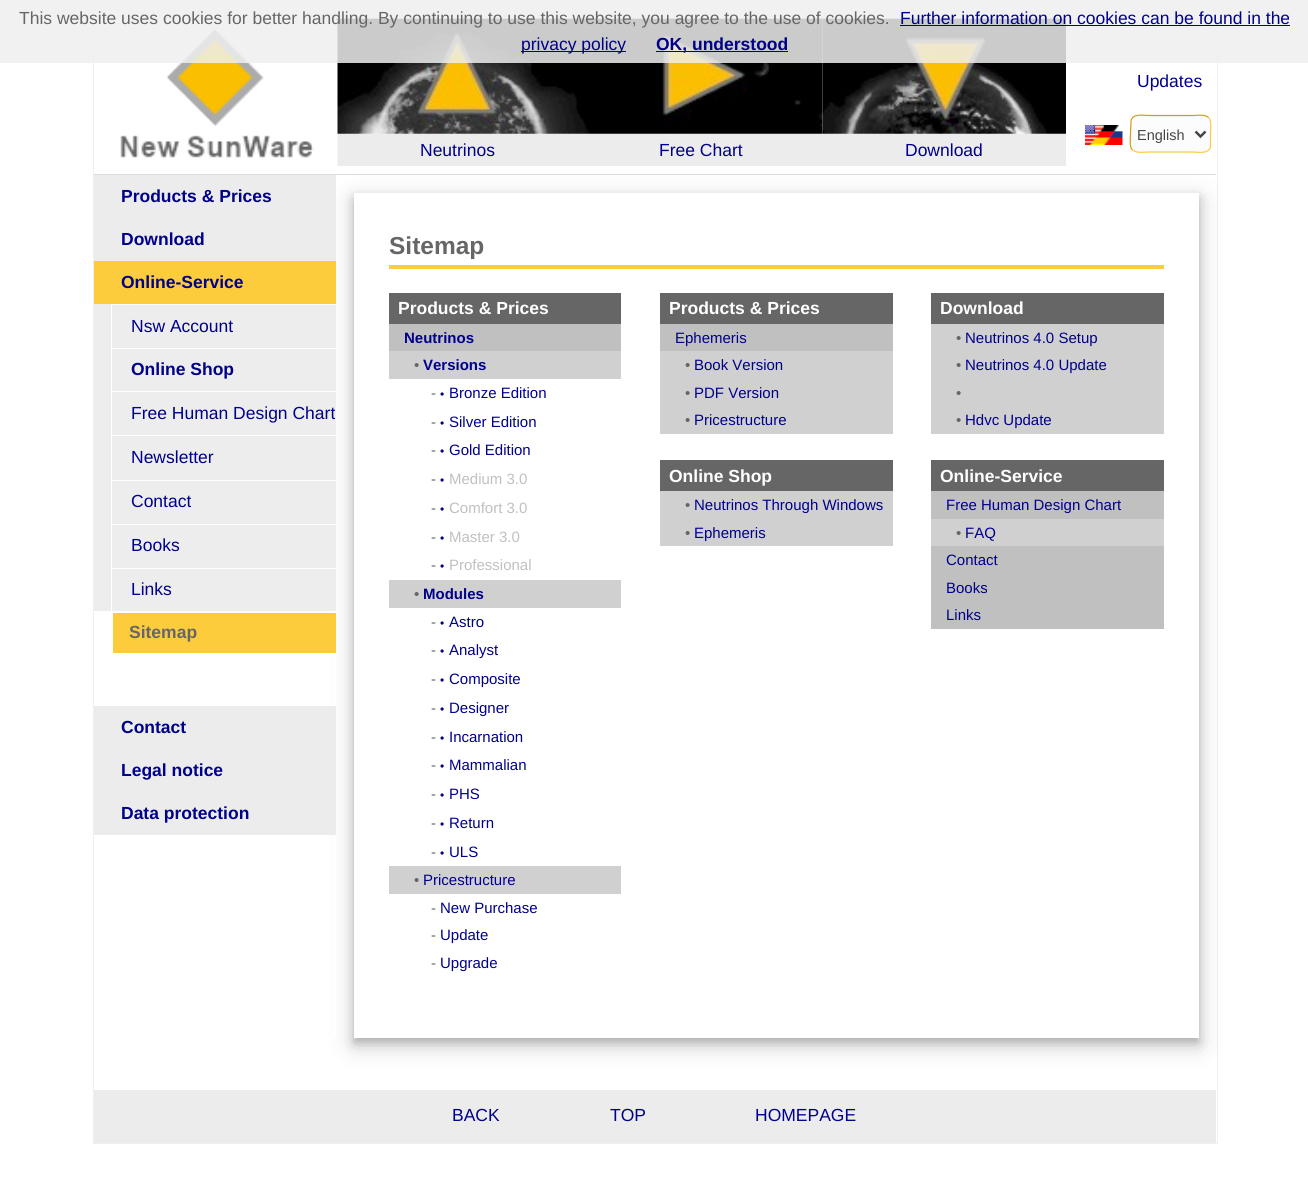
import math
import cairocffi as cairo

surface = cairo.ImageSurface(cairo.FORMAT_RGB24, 1308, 1181)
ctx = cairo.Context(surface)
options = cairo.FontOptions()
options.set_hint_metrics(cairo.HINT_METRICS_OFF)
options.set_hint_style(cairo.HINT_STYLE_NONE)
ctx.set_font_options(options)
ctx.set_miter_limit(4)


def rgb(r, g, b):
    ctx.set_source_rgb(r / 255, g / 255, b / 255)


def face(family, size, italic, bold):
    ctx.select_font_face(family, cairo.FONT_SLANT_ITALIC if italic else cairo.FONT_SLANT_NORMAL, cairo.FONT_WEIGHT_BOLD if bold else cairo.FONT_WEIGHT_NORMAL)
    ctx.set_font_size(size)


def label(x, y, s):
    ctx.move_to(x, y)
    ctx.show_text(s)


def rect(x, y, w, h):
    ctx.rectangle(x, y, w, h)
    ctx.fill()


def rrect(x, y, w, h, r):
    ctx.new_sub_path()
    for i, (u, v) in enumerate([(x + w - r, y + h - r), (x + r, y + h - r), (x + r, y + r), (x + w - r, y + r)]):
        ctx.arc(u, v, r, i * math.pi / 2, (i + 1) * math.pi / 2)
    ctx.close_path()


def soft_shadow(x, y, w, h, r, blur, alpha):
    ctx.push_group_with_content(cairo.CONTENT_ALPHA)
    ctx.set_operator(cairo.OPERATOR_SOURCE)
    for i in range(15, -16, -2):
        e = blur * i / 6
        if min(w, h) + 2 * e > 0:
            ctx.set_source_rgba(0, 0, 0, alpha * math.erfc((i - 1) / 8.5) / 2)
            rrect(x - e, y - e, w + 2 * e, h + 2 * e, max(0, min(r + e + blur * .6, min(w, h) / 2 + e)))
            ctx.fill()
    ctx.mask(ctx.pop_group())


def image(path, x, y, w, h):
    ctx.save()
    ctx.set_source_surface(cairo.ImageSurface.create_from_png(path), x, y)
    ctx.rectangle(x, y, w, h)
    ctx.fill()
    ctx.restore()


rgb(255, 255, 255)
ctx.paint()
ctx.rectangle(93.5, 18.5, 1124, 1125)
rgb(239, 239, 239)
ctx.set_line_width(1)
ctx.stroke()
image('image2.png', 336, 18, 244, 116)
rgb(236, 236, 236)
rect(337, 134, 729, 32)
rgb(221, 221, 221)
rect(94, 174, 1122, 1)
ctx.save()
ctx.set_fill_rule(cairo.FILL_RULE_EVEN_ODD)
ctx.new_path()
ctx.move_to(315, 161)
ctx.line_to(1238, 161)
ctx.line_to(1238, 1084)
ctx.line_to(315, 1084)
ctx.close_path()
ctx.move_to(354, 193)
ctx.line_to(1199, 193)
ctx.line_to(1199, 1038)
ctx.line_to(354, 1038)
ctx.close_path()
ctx.clip()
rgb(0, 0, 0)
soft_shadow(354, 200, 845, 845, 0, 12.5, 0.19)
ctx.restore()
image('image0.png', 120, 20, 218, 146)
image('image3.png', 580, 18, 243, 116)
image('image4.png', 822, 18, 245, 116)
rgb(255, 255, 255)
rect(1066, 19, 1, 115)
ctx.set_source_rgba(0.933, 0.933, 0.933, 0.85)
rect(0, 0, 1308, 63)
face('Liberation Sans', 17.5, 0, 0)
rgb(102, 102, 102)
label(19, 24, 'This website uses cookies for better handling. By continuing to use this website, you agree to the use of cookies.')
rgb(0, 0, 139)
label(900, 24, 'Further information on cookies can be found in the')
rect(900, 25, 390, 1)
rect(521, 51, 105, 1)
label(521, 50, 'privacy policy')
rect(656, 51, 132, 1)
face('Liberation Sans', 17.5, 0, 1)
label(656, 50, 'OK, understood')
face('Liberation Sans', 17.5, 0, 0)
label(1137, 87, 'Updates')
image('image1.png', 1085, 125, 38, 20)
rgb(252, 252, 252)
rrect(1130, 115, 81, 38, 8)
ctx.fill()
ctx.new_path()
ctx.move_to(1208.5, 117.5)
ctx.curve_to(1212, 121, 1210.5, 129.5, 1210.5, 134)
ctx.line_to(1210.5, 146.5)
ctx.curve_to(1209, 154.5, 1197.5, 152, 1193, 152)
ctx.line_to(1148.5, 152)
ctx.curve_to(1145, 152, 1136.5, 153.5, 1132.5, 150)
rgb(252, 204, 61)
ctx.set_line_width(1.2)
ctx.stroke()
ctx.new_path()
ctx.move_to(1132.5, 150)
ctx.curve_to(1129, 146.5, 1130.5, 138, 1130.5, 134)
ctx.line_to(1131, 121)
ctx.curve_to(1132.5, 113, 1143.5, 115.5, 1148.5, 115.5)
ctx.line_to(1193, 115.5)
ctx.curve_to(1196, 115.5, 1205, 114, 1208.5, 117.5)
rgb(208, 160, 15)
ctx.stroke()
ctx.new_path()
ctx.move_to(1195.5, 131.5)
ctx.line_to(1200.5, 136.5)
ctx.line_to(1205.5, 131.5)
rgb(70, 70, 70)
ctx.set_line_width(2.5)
ctx.stroke()
face('Liberation Sans', 14.5, 0, 0)
label(1137, 140, 'English')
face('Liberation Sans', 17.5, 0, 0)
rgb(0, 0, 139)
label(420, 156, 'Neutrinos')
label(659, 156, 'Free Chart')
label(905, 156, 'Download')
rgb(255, 255, 255)
rect(334, 611, 2, 425)
rgb(236, 236, 236)
rect(94, 175, 242, 86)
face('Liberation Sans', 17.5, 0, 1)
rgb(0, 0, 139)
label(121, 202, 'Products & Prices')
label(121, 245, 'Download')
rgb(252, 204, 61)
rect(94, 261, 242, 43)
rgb(0, 0, 139)
label(121, 288, 'Online-Service')
rgb(237, 237, 237)
rect(94, 304, 242, 307)
rgb(255, 255, 255)
rect(111, 304, 225, 1)
rect(111, 304, 1, 44)
face('Liberation Sans', 17.5, 0, 0)
rgb(0, 0, 139)
label(131, 332, 'Nsw Account')
rgb(255, 255, 255)
rect(111, 348, 225, 1)
rect(111, 348, 1, 43)
face('Liberation Sans', 17.5, 0, 1)
rgb(0, 0, 139)
label(131, 375, 'Online Shop')
rgb(255, 255, 255)
rect(111, 391, 225, 1)
rect(111, 391, 1, 44)
face('Liberation Sans', 17.5, 0, 0)
rgb(0, 0, 139)
label(131, 419, 'Free Human Design Chart')
rgb(255, 255, 255)
rect(111, 435, 225, 1)
rect(111, 435, 1, 45)
rgb(0, 0, 139)
label(131, 463, 'Newsletter')
rgb(255, 255, 255)
rect(111, 480, 225, 1)
rect(111, 480, 1, 44)
rgb(0, 0, 139)
label(131, 507, 'Contact')
rgb(255, 255, 255)
rect(111, 524, 225, 1)
rect(111, 524, 1, 44)
rgb(0, 0, 139)
label(131, 551, 'Books')
rgb(255, 255, 255)
rect(111, 568, 225, 1)
rect(111, 568, 1, 43)
rgb(0, 0, 139)
label(131, 595, 'Links')
rgb(252, 204, 61)
rect(113, 613, 223, 40)
face('Liberation Sans', 17.5, 0, 1)
rgb(102, 102, 102)
label(129, 638, 'Sitemap')
rgb(236, 236, 236)
rect(94, 706, 242, 129)
rgb(0, 0, 139)
label(121, 733, 'Contact')
label(121, 776, 'Legal notice')
label(121, 819, 'Data protection')
ctx.save()
ctx.set_fill_rule(cairo.FILL_RULE_EVEN_ODD)
ctx.new_path()
ctx.move_to(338, 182)
ctx.line_to(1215, 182)
ctx.line_to(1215, 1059)
ctx.line_to(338, 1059)
ctx.close_path()
ctx.move_to(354, 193)
ctx.line_to(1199, 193)
ctx.line_to(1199, 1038)
ctx.line_to(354, 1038)
ctx.close_path()
ctx.clip()
rgb(0, 0, 0)
soft_shadow(354, 198, 845, 845, 0, 5, 0.2)
ctx.restore()
rgb(252, 204, 61)
rect(389, 265, 775, 4)
face('Liberation Sans', 24.5, 0, 1)
rgb(102, 102, 102)
label(389, 254, 'Sitemap')
rect(389, 293, 232, 31)
face('Liberation Sans', 17.5, 0, 1)
rgb(255, 255, 255)
label(398, 314, 'Products & Prices')
rgb(192, 192, 192)
rect(389, 324, 232, 27)
face('Liberation Sans', 15, 0, 1)
rgb(0, 0, 139)
label(404, 343, 'Neutrinos')
rgb(208, 208, 208)
rect(389, 351, 232, 28)
face('Liberation Sans', 15, 0, 0)
rgb(102, 102, 102)
label(414, 370, '•')
face('Liberation Sans', 15, 0, 1)
rgb(0, 0, 139)
label(423, 370, 'Versions')
face('Liberation Sans', 15, 0, 0)
rgb(102, 102, 102)
label(431, 398, '-')
face('Liberation Sans', 12, 0, 0)
rgb(0, 0, 139)
label(440, 398, '•')
face('Liberation Sans', 15, 0, 0)
label(449, 398, 'Bronze Edition')
rgb(102, 102, 102)
label(431, 427, '-')
face('Liberation Sans', 12, 0, 0)
rgb(0, 0, 139)
label(440, 427, '•')
face('Liberation Sans', 15, 0, 0)
label(449, 427, 'Silver Edition')
rgb(102, 102, 102)
label(431, 455, '-')
face('Liberation Sans', 12, 0, 0)
rgb(0, 0, 139)
label(440, 455, '•')
face('Liberation Sans', 15, 0, 0)
label(449, 455, 'Gold Edition')
rgb(102, 102, 102)
label(431, 484, '-')
face('Liberation Sans', 12, 0, 0)
rgb(0, 0, 139)
label(440, 484, '•')
face('Liberation Sans', 15, 0, 0)
rgb(192, 192, 192)
label(449, 484, 'Medium 3.0')
rgb(102, 102, 102)
label(431, 513, '-')
face('Liberation Sans', 12, 0, 0)
rgb(0, 0, 139)
label(440, 513, '•')
face('Liberation Sans', 15, 0, 0)
rgb(192, 192, 192)
label(449, 513, 'Comfort 3.0')
rgb(102, 102, 102)
label(431, 542, '-')
face('Liberation Sans', 12, 0, 0)
rgb(0, 0, 139)
label(440, 542, '•')
face('Liberation Sans', 15, 0, 0)
rgb(192, 192, 192)
label(449, 542, 'Master 3.0')
rgb(102, 102, 102)
label(431, 570, '-')
face('Liberation Sans', 12, 0, 0)
rgb(0, 0, 139)
label(440, 570, '•')
face('Liberation Sans', 15, 0, 0)
rgb(192, 192, 192)
label(449, 570, 'Professional')
rgb(208, 208, 208)
rect(389, 580, 232, 28)
rgb(102, 102, 102)
label(414, 599, '•')
face('Liberation Sans', 15, 0, 1)
rgb(0, 0, 139)
label(423, 599, 'Modules')
face('Liberation Sans', 15, 0, 0)
rgb(102, 102, 102)
label(431, 627, '-')
face('Liberation Sans', 12, 0, 0)
rgb(0, 0, 139)
label(440, 627, '•')
face('Liberation Sans', 15, 0, 0)
label(449, 627, 'Astro')
rgb(102, 102, 102)
label(431, 655, '-')
face('Liberation Sans', 12, 0, 0)
rgb(0, 0, 139)
label(440, 655, '•')
face('Liberation Sans', 15, 0, 0)
label(449, 655, 'Analyst')
rgb(102, 102, 102)
label(431, 684, '-')
face('Liberation Sans', 12, 0, 0)
rgb(0, 0, 139)
label(440, 684, '•')
face('Liberation Sans', 15, 0, 0)
label(449, 684, 'Composite')
rgb(102, 102, 102)
label(431, 713, '-')
face('Liberation Sans', 12, 0, 0)
rgb(0, 0, 139)
label(440, 713, '•')
face('Liberation Sans', 15, 0, 0)
label(449, 713, 'Designer')
rgb(102, 102, 102)
label(431, 742, '-')
face('Liberation Sans', 12, 0, 0)
rgb(0, 0, 139)
label(440, 742, '•')
face('Liberation Sans', 15, 0, 0)
label(449, 742, 'Incarnation')
rgb(102, 102, 102)
label(431, 770, '-')
face('Liberation Sans', 12, 0, 0)
rgb(0, 0, 139)
label(440, 770, '•')
face('Liberation Sans', 15, 0, 0)
label(449, 770, 'Mammalian')
rgb(102, 102, 102)
label(431, 799, '-')
face('Liberation Sans', 12, 0, 0)
rgb(0, 0, 139)
label(440, 799, '•')
face('Liberation Sans', 15, 0, 0)
label(449, 799, 'PHS')
rgb(102, 102, 102)
label(431, 828, '-')
face('Liberation Sans', 12, 0, 0)
rgb(0, 0, 139)
label(440, 828, '•')
face('Liberation Sans', 15, 0, 0)
label(449, 828, 'Return')
rgb(102, 102, 102)
label(431, 857, '-')
face('Liberation Sans', 12, 0, 0)
rgb(0, 0, 139)
label(440, 857, '•')
face('Liberation Sans', 15, 0, 0)
label(449, 857, 'ULS')
rgb(208, 208, 208)
rect(389, 866, 232, 28)
rgb(102, 102, 102)
label(414, 885, '•')
rgb(0, 0, 139)
label(423, 885, 'Pricestructure')
rgb(102, 102, 102)
label(431, 913, '-')
rgb(0, 0, 139)
label(440, 913, 'New Purchase')
rgb(102, 102, 102)
label(431, 940, '-')
rgb(0, 0, 139)
label(440, 940, 'Update')
rgb(102, 102, 102)
label(431, 968, '-')
rgb(0, 0, 139)
label(440, 968, 'Upgrade')
rgb(102, 102, 102)
rect(660, 293, 233, 31)
face('Liberation Sans', 17.5, 0, 1)
rgb(255, 255, 255)
label(669, 314, 'Products & Prices')
rgb(192, 192, 192)
rect(660, 324, 233, 27)
face('Liberation Sans', 15, 0, 0)
rgb(0, 0, 139)
label(675, 343, 'Ephemeris')
rgb(208, 208, 208)
rect(660, 351, 233, 83)
rgb(102, 102, 102)
label(685, 370, '•')
rgb(0, 0, 139)
label(694, 370, 'Book Version')
rgb(102, 102, 102)
label(685, 398, '•')
rgb(0, 0, 139)
label(694, 398, 'PDF Version')
rgb(102, 102, 102)
label(685, 425, '•')
rgb(0, 0, 139)
label(694, 425, 'Pricestructure')
rgb(102, 102, 102)
rect(660, 460, 233, 31)
face('Liberation Sans', 17.5, 0, 1)
rgb(255, 255, 255)
label(669, 482, 'Online Shop')
rgb(208, 208, 208)
rect(660, 491, 233, 55)
face('Liberation Sans', 15, 0, 0)
rgb(102, 102, 102)
label(685, 510, '•')
rgb(0, 0, 139)
label(694, 510, 'Neutrinos Through Windows')
rgb(102, 102, 102)
label(685, 538, '•')
rgb(0, 0, 139)
label(694, 538, 'Ephemeris')
rgb(102, 102, 102)
rect(931, 293, 233, 31)
face('Liberation Sans', 17.5, 0, 1)
rgb(255, 255, 255)
label(940, 314, 'Download')
rgb(208, 208, 208)
rect(931, 324, 233, 110)
face('Liberation Sans', 15, 0, 0)
rgb(102, 102, 102)
label(956, 343, '•')
rgb(0, 0, 139)
label(965, 343, 'Neutrinos 4.0 Setup')
rgb(102, 102, 102)
label(956, 370, '•')
rgb(0, 0, 139)
label(965, 370, 'Neutrinos 4.0 Update')
rgb(102, 102, 102)
label(956, 398, '•')
label(956, 425, '•')
rgb(0, 0, 139)
label(965, 425, 'Hdvc Update')
rgb(102, 102, 102)
rect(931, 460, 233, 31)
face('Liberation Sans', 17.5, 0, 1)
rgb(255, 255, 255)
label(940, 482, 'Online-Service')
rgb(192, 192, 192)
rect(931, 491, 233, 28)
face('Liberation Sans', 15, 0, 0)
rgb(0, 0, 139)
label(946, 510, 'Free Human Design Chart')
rgb(208, 208, 208)
rect(931, 519, 233, 27)
rgb(102, 102, 102)
label(956, 538, '•')
rgb(0, 0, 139)
label(965, 538, 'FAQ')
rgb(192, 192, 192)
rect(931, 546, 233, 83)
rgb(0, 0, 139)
label(946, 565, 'Contact')
label(946, 593, 'Books')
label(946, 620, 'Links')
rgb(236, 236, 236)
rect(94, 1090, 1122, 53)
face('Liberation Sans', 17.5, 0, 0)
rgb(0, 0, 139)
label(452, 1121, 'BACK')
label(610, 1121, 'TOP')
label(755, 1121, 'HOMEPAGE')
surface.write_to_png('render.png')
